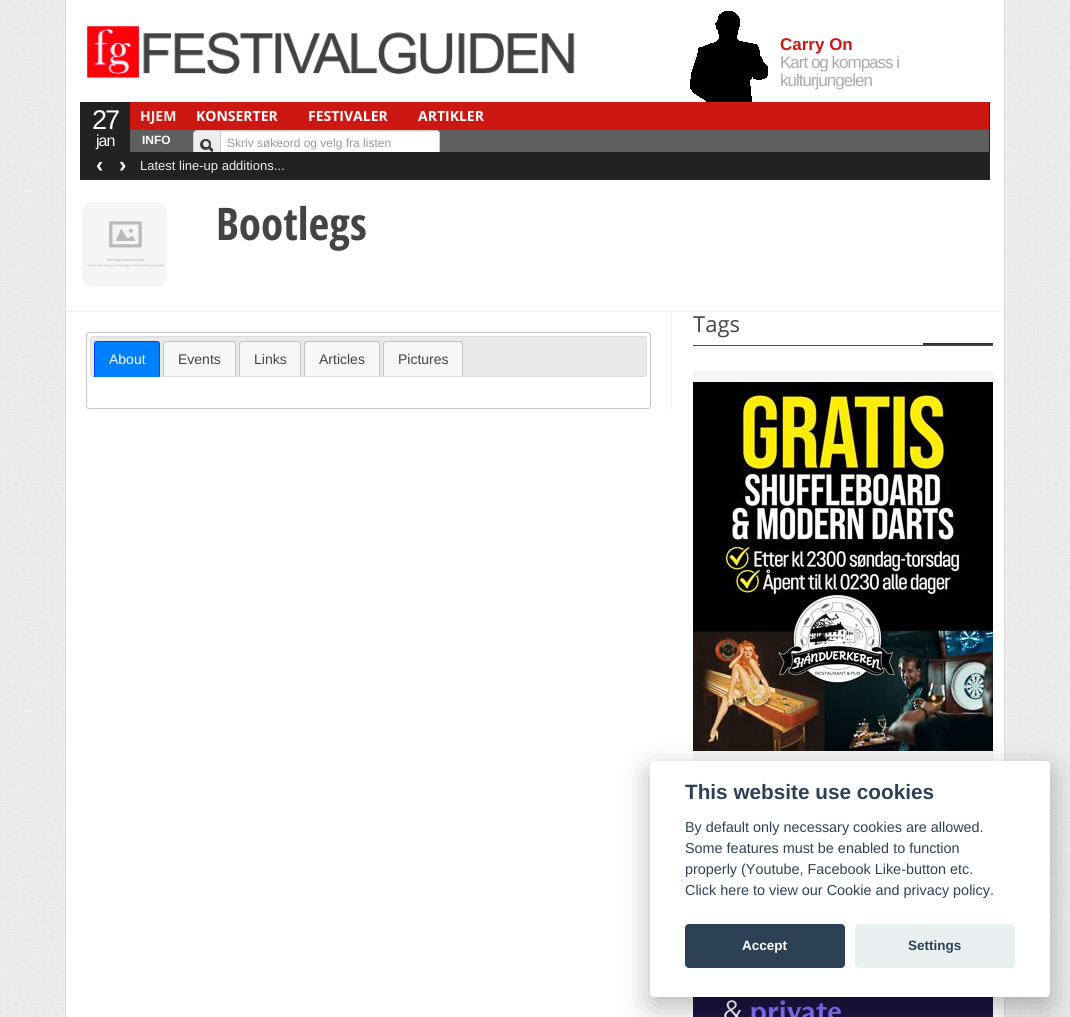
import math
import cairocffi as cairo

surface = cairo.ImageSurface(cairo.FORMAT_RGB24, 1070, 1017)
ctx = cairo.Context(surface)
options = cairo.FontOptions()
options.set_hint_metrics(cairo.HINT_METRICS_OFF)
options.set_hint_style(cairo.HINT_STYLE_NONE)
ctx.set_font_options(options)
ctx.set_miter_limit(4)


def rgb(r, g, b):
    ctx.set_source_rgb(r / 255, g / 255, b / 255)


def face(family, size, italic, bold):
    ctx.select_font_face(family, cairo.FONT_SLANT_ITALIC if italic else cairo.FONT_SLANT_NORMAL, cairo.FONT_WEIGHT_BOLD if bold else cairo.FONT_WEIGHT_NORMAL)
    ctx.set_font_size(size)


def label(x, y, s):
    ctx.move_to(x, y)
    ctx.show_text(s)


def tracked(x, y, s, letter, word):
    ctx.move_to(x, y)
    for ch in s:
        ctx.show_text(ch)
        ctx.rel_move_to(letter + word * (ch == ' '), 0)


def rect(x, y, w, h):
    ctx.rectangle(x, y, w, h)
    ctx.fill()


def rrect(x, y, w, h, r):
    ctx.new_sub_path()
    for i, (u, v) in enumerate([(x + w - r, y + h - r), (x + r, y + h - r), (x + r, y + r), (x + w - r, y + r)]):
        ctx.arc(u, v, r, i * math.pi / 2, (i + 1) * math.pi / 2)
    ctx.close_path()


def soft_shadow(x, y, w, h, r, blur, alpha):
    ctx.push_group_with_content(cairo.CONTENT_ALPHA)
    ctx.set_operator(cairo.OPERATOR_SOURCE)
    for i in range(15, -16, -2):
        e = blur * i / 6
        if min(w, h) + 2 * e > 0:
            ctx.set_source_rgba(0, 0, 0, alpha * math.erfc((i - 1) / 8.5) / 2)
            rrect(x - e, y - e, w + 2 * e, h + 2 * e, max(0, min(r + e + blur * .6, min(w, h) / 2 + e)))
            ctx.fill()
    ctx.mask(ctx.pop_group())


def image(path, x, y, w, h):
    ctx.save()
    ctx.set_source_surface(cairo.ImageSurface.create_from_png(path), x, y)
    ctx.rectangle(x, y, w, h)
    ctx.fill()
    ctx.restore()


rgb(255, 255, 255)
ctx.paint()
image('image0.png', 0, 0, 1070, 1017)
rgb(255, 255, 255)
rect(66, 0, 938, 1017)
rgb(221, 221, 221)
rect(1004, 0, 1, 1017)
rect(65, 0, 1, 1017)
image('image1.png', 87, 26, 488, 52)
image('image2.png', 690, 11, 78, 91)
face('Liberation Sans', 17, 0, 1)
rgb(205, 23, 19)
label(780, 50, 'Carry On')
face('Liberation Sans', 17, 0, 0)
rgb(170, 170, 170)
tracked(780, 68, 'Kart og kompass i', -1, 0)
tracked(780, 86, 'kulturjungelen', -1, 0)
rgb(34, 34, 34)
rect(80, 102, 50, 50)
face('Liberation Sans', 27, 0, 0)
rgb(255, 255, 255)
tracked(92, 129, '27', -2, 0)
face('Liberation Sans', 16, 0, 0)
tracked(96, 146, 'jan', -1, 0)
rgb(34, 34, 34)
rect(989, 102, 1, 50)
rgb(205, 23, 19)
rect(130, 102, 859, 28)
face('Open Sans', 14, 0, 1)
rgb(238, 238, 238)
label(140, 121, 'HJEM')
rgb(255, 255, 255)
label(196, 121, 'KONSERTER')
label(308, 121, 'FESTIVALER')
label(418, 121, 'ARTIKLER')
rgb(94, 94, 94)
rect(130, 130, 859, 22)
face('Liberation Sans', 12, 0, 1)
rgb(255, 255, 255)
label(142, 144, 'INFO')
rgb(238, 238, 238)
ctx.new_path()
ctx.move_to(197, 130.5)
ctx.line_to(220.5, 130.5)
ctx.line_to(220.5, 159.5)
ctx.line_to(197, 159.5)
ctx.curve_to(195, 159.5, 193.5, 158, 193.5, 156)
ctx.line_to(193.5, 134)
ctx.curve_to(193.5, 132, 195, 130.5, 197, 130.5)
ctx.close_path()
ctx.fill_preserve()
rgb(204, 204, 204)
ctx.set_line_width(1)
ctx.stroke()
image('image3.png', 201, 139, 13, 13)
image('image4.png', 200, 139, 13, 13)
rgb(255, 255, 255)
ctx.new_path()
ctx.move_to(220, 130)
ctx.line_to(436, 130)
ctx.curve_to(438, 130, 440, 132, 440, 134)
ctx.line_to(440, 151)
ctx.curve_to(440, 153, 438, 155, 436, 155)
ctx.line_to(220, 155)
ctx.close_path()
ctx.fill()
rgb(236, 236, 236)
ctx.new_path()
ctx.move_to(221, 132)
ctx.line_to(436, 132)
ctx.curve_to(438, 132, 439, 133, 439, 135)
ctx.line_to(439, 134)
ctx.curve_to(439, 132, 438, 131, 436, 131)
ctx.line_to(221, 131)
ctx.close_path()
ctx.fill()
ctx.new_path()
ctx.move_to(220.5, 130.5)
ctx.line_to(436, 130.5)
ctx.curve_to(438, 130.5, 439.5, 132, 439.5, 134)
ctx.line_to(439.5, 151)
ctx.curve_to(439.5, 153, 438, 154.5, 436, 154.5)
ctx.line_to(220.5, 154.5)
ctx.close_path()
rgb(204, 204, 204)
ctx.stroke()
face('Liberation Sans', 12, 0, 0)
rgb(153, 153, 153)
label(227, 147, 'Skriv søkeord og velg fra listen')
rgb(34, 34, 34)
rect(80, 152, 910, 28)
face('Liberation Sans', 22, 0, 1)
rgb(255, 255, 255)
label(96, 172, '‹')
label(119, 172, '›')
face('Liberation Sans', 13, 0, 0)
rgb(238, 238, 238)
label(140, 170, 'Latest line-up additions...')
image('image5.png', 82, 202, 85, 85)
face('Open Sans Condensed', 45, 0, 1)
rgb(68, 68, 68)
label(216, 240, 'Bootlegs')
rgb(239, 239, 239)
rect(66, 311, 938, 1)
image('image6.png', 923, 343, 70, 2)
rgb(74, 74, 74)
rect(693, 345, 300, 1)
face('Open Sans', 22, 0, 0)
rgb(68, 68, 68)
label(693, 332, 'Tags')
rgb(245, 245, 245)
rect(693, 371, 300, 390)
image('image7.png', 693, 382, 300, 369)
image('image8.png', 693, 997, 300, 20)
rgb(239, 239, 239)
rect(671, 312, 1, 97)
rrect(86.5, 332.5, 564, 76, 2.5)
rgb(197, 197, 197)
ctx.stroke()
rgb(233, 233, 233)
rrect(90.5, 336.5, 556, 40, 2.5)
ctx.fill_preserve()
rgb(221, 221, 221)
ctx.stroke()
rgb(0, 127, 255)
ctx.new_path()
ctx.move_to(97, 342)
ctx.line_to(157, 342)
ctx.curve_to(158, 342, 159, 343, 159, 344)
ctx.line_to(159, 377)
ctx.line_to(95, 377)
ctx.line_to(95, 344)
ctx.curve_to(95, 343, 96, 342, 97, 342)
ctx.close_path()
ctx.fill()
rgb(0, 62, 255)
ctx.set_fill_rule(cairo.FILL_RULE_EVEN_ODD)
ctx.new_path()
ctx.move_to(97, 341)
ctx.line_to(157, 341)
ctx.curve_to(159, 341, 160, 342, 160, 344)
ctx.line_to(160, 377)
ctx.line_to(94, 377)
ctx.line_to(94, 344)
ctx.curve_to(94, 342, 95, 341, 97, 341)
ctx.close_path()
ctx.move_to(97, 342)
ctx.line_to(157, 342)
ctx.curve_to(158, 342, 159, 343, 159, 344)
ctx.line_to(159, 377)
ctx.line_to(95, 377)
ctx.line_to(95, 344)
ctx.curve_to(95, 343, 96, 342, 97, 342)
ctx.close_path()
ctx.fill()
face('Liberation Sans', 14, 0, 0)
rgb(255, 255, 255)
label(109, 364, 'About')
rgb(246, 246, 246)
ctx.new_path()
ctx.move_to(166, 342)
ctx.line_to(233, 342)
ctx.curve_to(234, 342, 235, 343, 235, 344)
ctx.line_to(235, 376)
ctx.line_to(164, 376)
ctx.line_to(164, 344)
ctx.curve_to(164, 343, 165, 342, 166, 342)
ctx.close_path()
ctx.fill()
rgb(197, 197, 197)
ctx.new_path()
ctx.move_to(166, 341)
ctx.line_to(233, 341)
ctx.curve_to(235, 341, 236, 342, 236, 344)
ctx.line_to(236, 376)
ctx.line_to(163, 376)
ctx.line_to(163, 344)
ctx.curve_to(163, 342, 164, 341, 166, 341)
ctx.close_path()
ctx.move_to(166, 342)
ctx.line_to(233, 342)
ctx.curve_to(234, 342, 235, 343, 235, 344)
ctx.line_to(235, 376)
ctx.line_to(164, 376)
ctx.line_to(164, 344)
ctx.curve_to(164, 343, 165, 342, 166, 342)
ctx.close_path()
ctx.fill()
rgb(68, 68, 68)
label(178, 364, 'Events')
rgb(246, 246, 246)
ctx.new_path()
ctx.move_to(242, 342)
ctx.line_to(298, 342)
ctx.curve_to(299, 342, 300, 343, 300, 344)
ctx.line_to(300, 376)
ctx.line_to(240, 376)
ctx.line_to(240, 344)
ctx.curve_to(240, 343, 241, 342, 242, 342)
ctx.close_path()
ctx.fill()
rgb(197, 197, 197)
ctx.new_path()
ctx.move_to(242, 341)
ctx.line_to(298, 341)
ctx.curve_to(300, 341, 301, 342, 301, 344)
ctx.line_to(301, 376)
ctx.line_to(239, 376)
ctx.line_to(239, 344)
ctx.curve_to(239, 342, 240, 341, 242, 341)
ctx.close_path()
ctx.move_to(242, 342)
ctx.line_to(298, 342)
ctx.curve_to(299, 342, 300, 343, 300, 344)
ctx.line_to(300, 376)
ctx.line_to(240, 376)
ctx.line_to(240, 344)
ctx.curve_to(240, 343, 241, 342, 242, 342)
ctx.close_path()
ctx.fill()
rgb(68, 68, 68)
label(254, 364, 'Links')
rgb(246, 246, 246)
ctx.new_path()
ctx.move_to(307, 342)
ctx.line_to(377, 342)
ctx.curve_to(378, 342, 379, 343, 379, 344)
ctx.line_to(379, 376)
ctx.line_to(305, 376)
ctx.line_to(305, 344)
ctx.curve_to(305, 343, 306, 342, 307, 342)
ctx.close_path()
ctx.fill()
rgb(197, 197, 197)
ctx.new_path()
ctx.move_to(307, 341)
ctx.line_to(377, 341)
ctx.curve_to(379, 341, 380, 342, 380, 344)
ctx.line_to(380, 376)
ctx.line_to(304, 376)
ctx.line_to(304, 344)
ctx.curve_to(304, 342, 305, 341, 307, 341)
ctx.close_path()
ctx.move_to(307, 342)
ctx.line_to(377, 342)
ctx.curve_to(378, 342, 379, 343, 379, 344)
ctx.line_to(379, 376)
ctx.line_to(305, 376)
ctx.line_to(305, 344)
ctx.curve_to(305, 343, 306, 342, 307, 342)
ctx.close_path()
ctx.fill()
rgb(68, 68, 68)
label(319, 364, 'Articles')
rgb(246, 246, 246)
ctx.new_path()
ctx.move_to(386, 342)
ctx.line_to(460, 342)
ctx.curve_to(461, 342, 462, 343, 462, 344)
ctx.line_to(462, 376)
ctx.line_to(384, 376)
ctx.line_to(384, 344)
ctx.curve_to(384, 343, 385, 342, 386, 342)
ctx.close_path()
ctx.fill()
rgb(197, 197, 197)
ctx.new_path()
ctx.move_to(386, 341)
ctx.line_to(460, 341)
ctx.curve_to(462, 341, 463, 342, 463, 344)
ctx.line_to(463, 376)
ctx.line_to(383, 376)
ctx.line_to(383, 344)
ctx.curve_to(383, 342, 384, 341, 386, 341)
ctx.close_path()
ctx.move_to(386, 342)
ctx.line_to(460, 342)
ctx.curve_to(461, 342, 462, 343, 462, 344)
ctx.line_to(462, 376)
ctx.line_to(384, 376)
ctx.line_to(384, 344)
ctx.curve_to(384, 343, 385, 342, 386, 342)
ctx.close_path()
ctx.fill()
rgb(68, 68, 68)
label(398, 364, 'Pictures')
rgb(2, 2, 3)
soft_shadow(650, 771, 400, 236, 4, 15, 0.28)
rgb(255, 255, 255)
rrect(650, 761, 400, 236, 4)
ctx.fill()
face('Liberation Sans', 20.75, 0, 1)
rgb(45, 65, 86)
label(685, 799, 'This website use cookies')
face('Liberation Sans', 14.4, 0, 0)
label(685, 832, 'By default only necessary cookies are allowed.')
label(685, 853, 'Some features must be enabled to function')
label(685, 874, 'properly (Youtube, Facebook Like-button etc.')
label(685, 895, 'Click here to view our Cookie and privacy policy.')
rrect(685, 924, 160, 44, 4)
ctx.fill()
face('Liberation Sans', 13.5, 0, 1)
rgb(255, 255, 255)
label(742, 950, 'Accept')
rgb(234, 239, 242)
rrect(855, 924, 160, 44, 4)
ctx.fill()
rgb(45, 65, 86)
label(908, 950, 'Settings')
surface.write_to_png('render.png')
